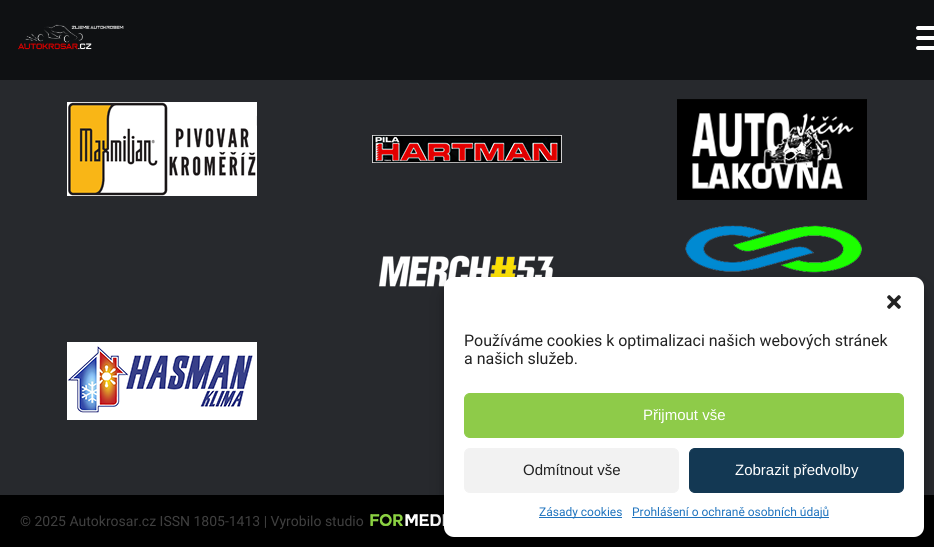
import math
import cairocffi as cairo

surface = cairo.ImageSurface(cairo.FORMAT_RGB24, 934, 547)
ctx = cairo.Context(surface)
options = cairo.FontOptions()
options.set_hint_metrics(cairo.HINT_METRICS_OFF)
options.set_hint_style(cairo.HINT_STYLE_NONE)
ctx.set_font_options(options)
ctx.set_miter_limit(4)


def rgb(r, g, b):
    ctx.set_source_rgb(r / 255, g / 255, b / 255)


def face(family, size, italic, bold):
    ctx.select_font_face(family, cairo.FONT_SLANT_ITALIC if italic else cairo.FONT_SLANT_NORMAL, cairo.FONT_WEIGHT_BOLD if bold else cairo.FONT_WEIGHT_NORMAL)
    ctx.set_font_size(size)


def label(x, y, s):
    ctx.move_to(x, y)
    ctx.show_text(s)


def rect(x, y, w, h):
    ctx.rectangle(x, y, w, h)
    ctx.fill()


def rrect(x, y, w, h, r):
    ctx.new_sub_path()
    for i, (u, v) in enumerate([(x + w - r, y + h - r), (x + r, y + h - r), (x + r, y + r), (x + w - r, y + r)]):
        ctx.arc(u, v, r, i * math.pi / 2, (i + 1) * math.pi / 2)
    ctx.close_path()


def soft_shadow(x, y, w, h, r, blur, alpha):
    ctx.push_group_with_content(cairo.CONTENT_ALPHA)
    ctx.set_operator(cairo.OPERATOR_SOURCE)
    for i in range(15, -16, -2):
        e = blur * i / 6
        if min(w, h) + 2 * e > 0:
            ctx.set_source_rgba(0, 0, 0, alpha * math.erfc((i - 1) / 8.5) / 2)
            rrect(x - e, y - e, w + 2 * e, h + 2 * e, max(0, min(r + e + blur * .6, min(w, h) / 2 + e)))
            ctx.fill()
    ctx.mask(ctx.pop_group())


def image(path, x, y, w, h):
    ctx.save()
    ctx.set_source_surface(cairo.ImageSurface.create_from_png(path), x, y)
    ctx.rectangle(x, y, w, h)
    ctx.fill()
    ctx.restore()


rgb(39, 41, 45)
ctx.paint()
rgb(15, 17, 19)
rect(0, 0, 934, 80)
image('image0.png', 18, 24, 106, 26)
rgb(255, 255, 255)
rrect(916, 26, 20, 4, 2)
ctx.fill()
rrect(916, 36, 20, 4, 2)
ctx.fill()
rrect(916, 46, 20, 4, 2)
ctx.fill()
image('image1.png', 67, 102, 190, 94)
image('image2.png', 372, 135, 190, 28)
image('image3.png', 677, 99, 190, 101)
image('image4.png', 378, 255, 176, 32)
image('image5.png', 685, 225, 177, 48)
image('image6.png', 67, 342, 190, 78)
rgb(0, 0, 0)
rect(0, 495, 934, 52)
image('image8.png', 370, 514, 74, 12)
rgb(0, 0, 0)
soft_shadow(444, 283, 480, 260, 10, 3, 0.23)
soft_shadow(444, 287, 480, 260, 10, 10, 0.19)
rgb(255, 255, 255)
rrect(444, 277, 480, 260, 10)
ctx.fill()
image('image7.png', 887, 295, 14, 14)
face('Roboto', 16, 0, 0)
rgb(34, 34, 34)
label(464, 346, 'Používáme cookies k optimalizaci našich webových stránek')
label(464, 364, 'a našich služeb.')
rgb(142, 203, 73)
rrect(464.5, 393.5, 439, 44, 5.5)
ctx.fill_preserve()
ctx.set_line_width(1)
ctx.stroke()
face('Liberation Sans', 15, 0, 0)
rgb(255, 255, 255)
label(643, 420, 'Přijmout vše')
rgb(242, 242, 242)
rrect(464.5, 448.5, 214, 44, 5.5)
ctx.fill_preserve()
ctx.stroke()
rgb(34, 34, 34)
label(523, 475, 'Odmítnout vše')
rgb(19, 56, 83)
rrect(689.5, 448.5, 214, 44, 5.5)
ctx.fill_preserve()
ctx.stroke()
rgb(255, 255, 255)
label(735, 475, 'Zobrazit předvolby')
rgb(30, 115, 190)
rect(539, 517, 83, 1)
face('Roboto', 12, 0, 0)
label(539, 516, 'Zásady cookies')
rect(632, 517, 197, 1)
label(632, 516, 'Prohlášení o ochraně osobních údajů')
face('Roboto', 14, 0, 0)
rgb(64, 64, 64)
label(20, 526, '© 2025 Autokrosar.cz ISSN 1805-1413 | Vyrobilo studio')
surface.write_to_png('render.png')
